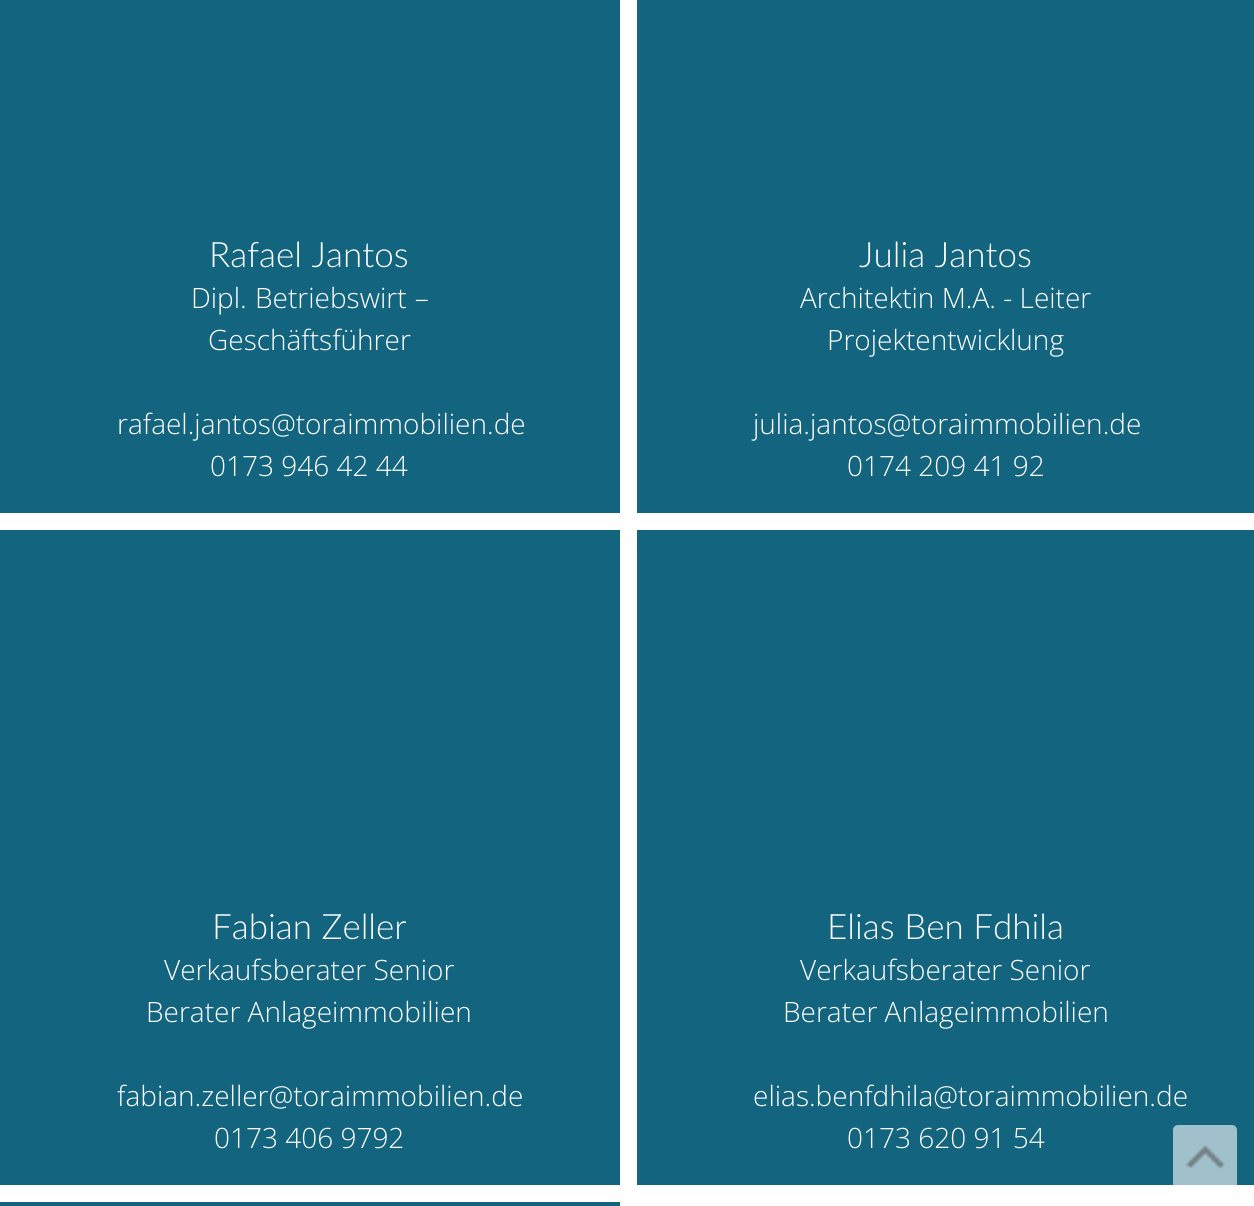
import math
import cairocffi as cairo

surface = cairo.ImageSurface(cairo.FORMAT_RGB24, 1254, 1206)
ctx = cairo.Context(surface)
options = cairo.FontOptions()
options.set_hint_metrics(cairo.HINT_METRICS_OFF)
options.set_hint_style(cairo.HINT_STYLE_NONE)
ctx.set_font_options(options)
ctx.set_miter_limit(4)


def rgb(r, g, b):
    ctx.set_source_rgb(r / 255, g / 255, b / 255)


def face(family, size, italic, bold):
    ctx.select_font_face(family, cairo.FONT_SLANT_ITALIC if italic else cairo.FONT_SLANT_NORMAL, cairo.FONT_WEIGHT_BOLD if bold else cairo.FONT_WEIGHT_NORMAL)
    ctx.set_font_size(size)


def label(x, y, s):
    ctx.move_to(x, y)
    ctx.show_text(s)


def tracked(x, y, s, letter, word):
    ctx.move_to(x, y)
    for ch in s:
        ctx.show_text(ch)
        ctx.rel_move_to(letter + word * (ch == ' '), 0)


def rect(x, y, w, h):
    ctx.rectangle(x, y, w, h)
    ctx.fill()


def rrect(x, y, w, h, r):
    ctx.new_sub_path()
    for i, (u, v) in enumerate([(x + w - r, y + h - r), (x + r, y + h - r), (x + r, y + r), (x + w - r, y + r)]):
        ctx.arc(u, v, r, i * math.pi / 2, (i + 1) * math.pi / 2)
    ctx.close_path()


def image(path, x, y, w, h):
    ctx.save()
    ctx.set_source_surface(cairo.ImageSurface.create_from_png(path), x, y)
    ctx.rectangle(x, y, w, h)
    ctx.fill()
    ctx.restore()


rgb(255, 255, 255)
ctx.paint()
rgb(18, 100, 127)
rect(0, 0, 620, 513)
face('Lato Light', 35, 0, 0)
rgb(255, 255, 255)
label(209, 267, 'Rafael Jantos')
face('Open Sans Light', 28, 0, 0)
tracked(191, 308, 'Dipl. Betriebswirt –', 0, 1)
label(208, 350, 'Geschäftsführer')
label(117, 434, 'rafael.jantos@toraimmobilien.de')
label(210, 476, '0173 946 42 44')
rgb(18, 100, 127)
rect(637, 0, 617, 513)
face('Lato Light', 35, 0, 0)
rgb(255, 255, 255)
label(859, 267, 'Julia Jantos')
face('Open Sans Light', 28, 0, 0)
label(800, 308, 'Architektin M.A. - Leiter')
label(827, 350, 'Projektentwicklung')
label(753, 434, 'julia.jantos@toraimmobilien.de')
label(847, 476, '0174 209 41 92')
rgb(18, 100, 127)
rect(0, 530, 620, 655)
face('Lato Light', 35, 0, 0)
rgb(255, 255, 255)
label(212, 939, 'Fabian Zeller')
face('Open Sans Light', 28, 0, 0)
label(164, 980, 'Verkaufsberater Senior')
label(146, 1022, 'Berater Anlageimmobilien')
label(117, 1106, 'fabian.zeller@toraimmobilien.de')
label(214, 1148, '0173 406 9792')
rgb(18, 100, 127)
rect(637, 530, 617, 655)
face('Lato Light', 35, 0, 0)
rgb(255, 255, 255)
label(827, 939, 'Elias Ben Fdhila')
face('Open Sans Light', 28, 0, 0)
label(800, 980, 'Verkaufsberater Senior')
label(783, 1022, 'Berater Anlageimmobilien')
label(753, 1106, 'elias.benfdhila@toraimmobilien.de')
label(847, 1148, '0173 620 91 54')
rgb(18, 100, 127)
rect(0, 1202, 620, 4)
ctx.set_source_rgba(1, 1, 1, 0.6)
rrect(1173, 1125, 64, 65, 5)
ctx.fill()
image('image0.png', 1185, 1145, 40, 24)
surface.write_to_png('render.png')
